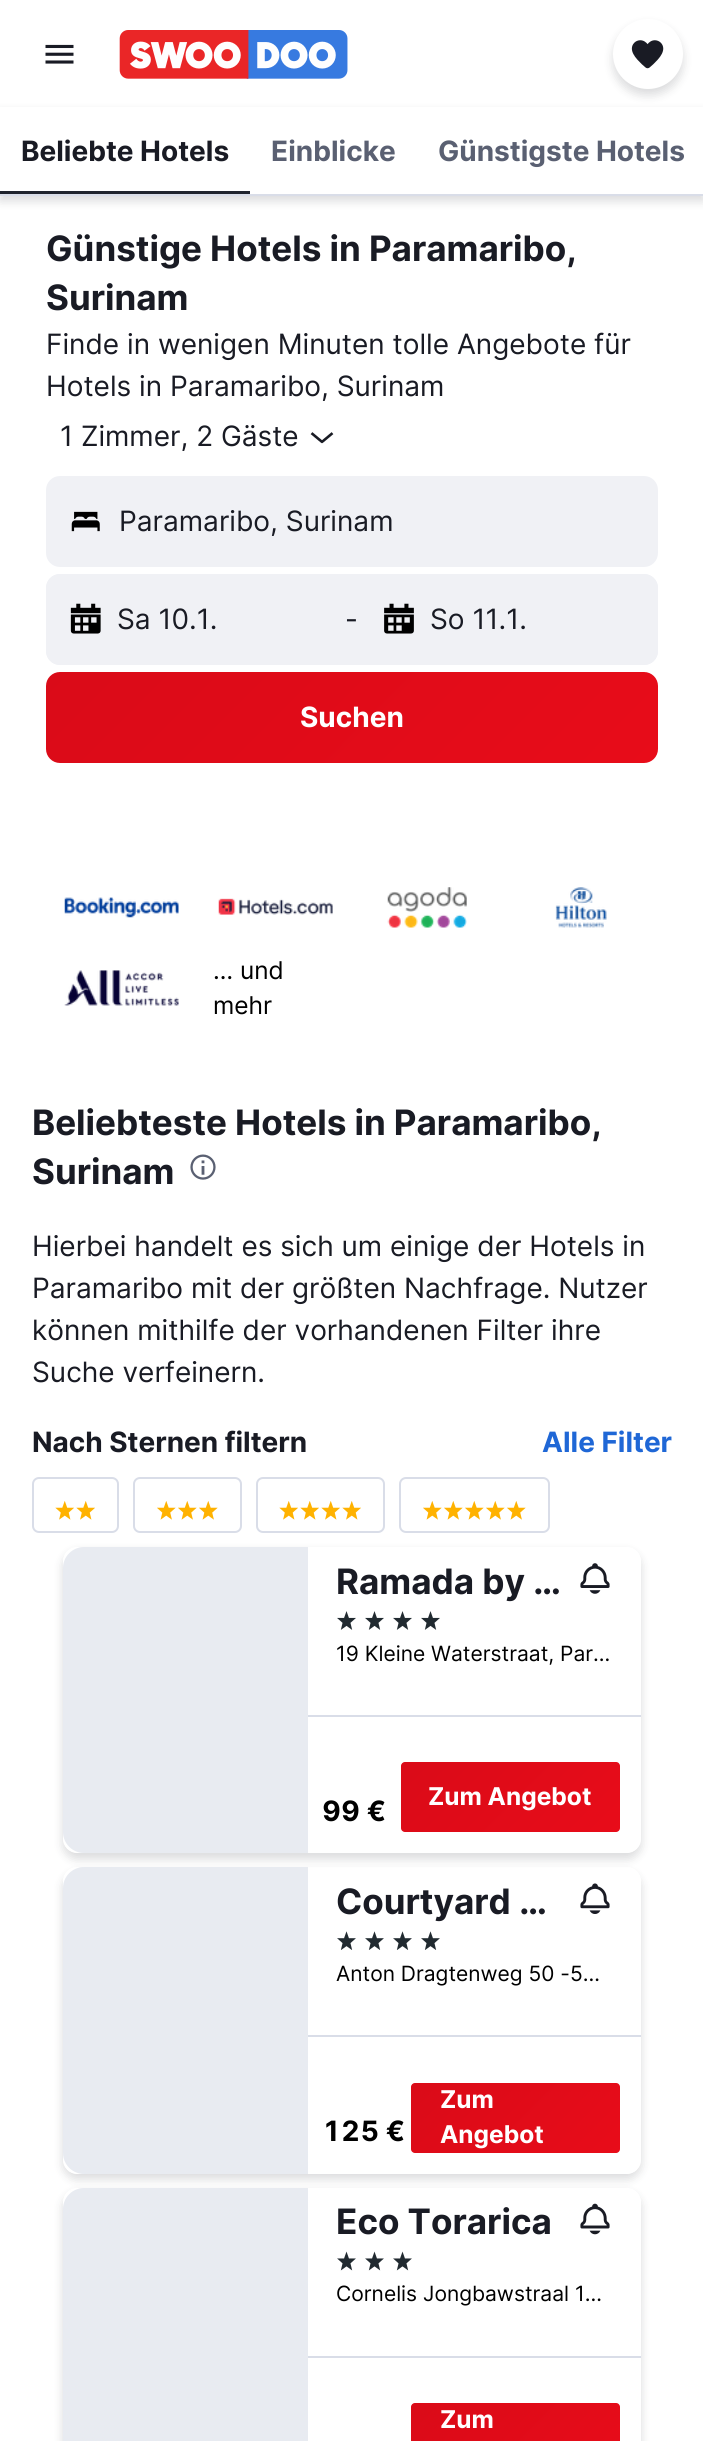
import math
import cairocffi as cairo

surface = cairo.ImageSurface(cairo.FORMAT_RGB24, 703, 2441)
ctx = cairo.Context(surface)
options = cairo.FontOptions()
options.set_hint_metrics(cairo.HINT_METRICS_OFF)
options.set_hint_style(cairo.HINT_STYLE_NONE)
ctx.set_font_options(options)
ctx.set_miter_limit(4)


def rgb(r, g, b):
    ctx.set_source_rgb(r / 255, g / 255, b / 255)


def face(family, size, italic, bold):
    ctx.select_font_face(family, cairo.FONT_SLANT_ITALIC if italic else cairo.FONT_SLANT_NORMAL, cairo.FONT_WEIGHT_BOLD if bold else cairo.FONT_WEIGHT_NORMAL)
    ctx.set_font_size(size)


def label(x, y, s):
    ctx.move_to(x, y)
    ctx.show_text(s)


def rect(x, y, w, h):
    ctx.rectangle(x, y, w, h)
    ctx.fill()


def rrect(x, y, w, h, r):
    ctx.new_sub_path()
    for i, (u, v) in enumerate([(x + w - r, y + h - r), (x + r, y + h - r), (x + r, y + r), (x + w - r, y + r)]):
        ctx.arc(u, v, r, i * math.pi / 2, (i + 1) * math.pi / 2)
    ctx.close_path()


def soft_shadow(x, y, w, h, r, blur, alpha):
    ctx.push_group_with_content(cairo.CONTENT_ALPHA)
    ctx.set_operator(cairo.OPERATOR_SOURCE)
    for i in range(15, -16, -2):
        e = blur * i / 6
        if min(w, h) + 2 * e > 0:
            ctx.set_source_rgba(0, 0, 0, alpha * math.erfc((i - 1) / 8.5) / 2)
            rrect(x - e, y - e, w + 2 * e, h + 2 * e, max(0, min(r + e + blur * .6, min(w, h) / 2 + e)))
            ctx.fill()
    ctx.mask(ctx.pop_group())


def image(path, x, y, w, h):
    ctx.save()
    ctx.set_source_surface(cairo.ImageSurface.create_from_png(path), x, y)
    ctx.rectangle(x, y, w, h)
    ctx.fill()
    ctx.restore()


rgb(255, 255, 255)
ctx.paint()
image('image0.png', 45, 44, 29, 20)
image('image1.png', 119, 30, 229, 49)
rgb(25, 27, 36)
soft_shadow(0, 112, 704, 89, 0, 5, 0.16)
rgb(255, 255, 255)
rect(0, 107, 703, 87)
rgb(25, 27, 36)
soft_shadow(613, 25, 70, 70, 35, 5, 0.16)
rgb(255, 255, 255)
ctx.arc(648, 54, 35, 0, 2 * math.pi)
ctx.fill()
image('image2.png', 631, 40, 33, 29)
rgb(217, 221, 232)
rect(0, 194, 703, 2)
rgb(31, 35, 45)
rect(0, 191, 250, 3)
face('Inter', 28, 0, 1)
rgb(25, 27, 36)
label(21, 161, 'Beliebte Hotels')
rgb(90, 96, 114)
label(271, 161, 'Einblicke')
label(438, 161, 'Günstigste Hotels')
face('Inter', 35, 0, 1)
rgb(25, 27, 36)
label(46, 261, 'Günstige Hotels in Paramaribo,')
label(46, 310, 'Surinam')
face('Inter', 28, 0, 0)
label(46, 354, 'Finde in wenigen Minuten tolle Angebote für')
label(46, 396, 'Hotels in Paramaribo, Surinam')
label(60, 446, '1 Zimmer, 2 Gäste')
image('image3.png', 310, 432, 24, 12)
rgb(240, 241, 245)
rrect(47, 477, 610, 89, 13)
ctx.fill_preserve()
ctx.stroke()
image('image4.png', 71, 511, 29, 21)
rgb(25, 27, 36)
label(119, 531, 'Paramaribo, Surinam')
rgb(240, 241, 245)
rrect(46, 574, 612, 91, 14)
ctx.fill()
rrect(46, 574, 299, 91, 14)
ctx.fill()
image('image5.png', 70, 603, 31, 31)
rgb(25, 27, 36)
label(117, 629, 'Sa 10.1.')
label(345, 629, '-')
rgb(240, 241, 245)
rrect(359, 574, 299, 91, 14)
ctx.fill()
image('image6.png', 384, 603, 30, 31)
rgb(25, 27, 36)
label(430, 629, 'So 11.1.')
gradient = cairo.LinearGradient(176, 542, 528, 893)
gradient.add_color_stop_rgba(0, 0.855, 0.043, 0.094, 1)
gradient.add_color_stop_rgba(1, 0.91, 0.047, 0.098, 1)
ctx.set_source(gradient)
rrect(46, 672, 612, 91, 14)
ctx.fill()
face('Inter', 28, 0, 1)
rgb(255, 255, 255)
label(300, 727, 'Suchen')
image('image7.png', 64, 897, 115, 21)
image('image8.png', 218, 898, 115, 17)
image('image9.png', 387, 887, 80, 41)
image('image10.png', 555, 887, 52, 41)
image('image11.png', 64, 970, 115, 36)
face('Inter', 24.5, 0, 0)
rgb(0, 0, 0)
label(213, 979, '… und')
label(213, 1014, 'mehr')
face('Inter', 35, 0, 1)
rgb(25, 27, 36)
label(32, 1135, 'Beliebteste Hotels in Paramaribo,')
label(32, 1184, 'Surinam')
image('image12.png', 190, 1154, 26, 26)
face('Inter', 28, 0, 0)
label(32, 1256, 'Hierbei handelt es sich um einige der Hotels in')
label(32, 1298, 'Paramaribo mit der größten Nachfrage. Nutzer')
label(32, 1340, 'können mithilfe der vorhandenen Filter ihre')
label(32, 1382, 'Suche verfeinern.')
face('Inter', 28, 0, 1)
label(32, 1452, 'Nach Sternen filtern')
rgb(31, 103, 214)
label(542, 1452, 'Alle Filter')
rrect(33, 1478, 85, 54, 6)
rgb(217, 221, 232)
ctx.stroke()
image('image13.png', 55, 1501, 19, 19)
image('image13.png', 76, 1501, 19, 19)
rrect(134, 1478, 107, 54, 6)
ctx.stroke()
image('image14.png', 157, 1501, 19, 19)
image('image14.png', 178, 1501, 19, 19)
image('image14.png', 199, 1501, 19, 19)
rrect(257, 1478, 127, 54, 6)
ctx.stroke()
image('image13.png', 279, 1501, 19, 19)
image('image13.png', 300, 1501, 19, 19)
image('image13.png', 321, 1501, 19, 19)
image('image13.png', 342, 1501, 19, 19)
rrect(400, 1478, 149, 54, 6)
ctx.stroke()
image('image14.png', 423, 1501, 19, 19)
image('image14.png', 444, 1501, 19, 19)
image('image14.png', 465, 1501, 19, 19)
image('image14.png', 486, 1501, 19, 19)
image('image14.png', 507, 1501, 19, 19)
ctx.save()
ctx.set_fill_rule(cairo.FILL_RULE_EVEN_ODD)
ctx.new_path()
ctx.move_to(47, 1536)
ctx.line_to(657, 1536)
ctx.line_to(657, 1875)
ctx.line_to(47, 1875)
ctx.close_path()
ctx.move_to(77, 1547)
ctx.line_to(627, 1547)
ctx.curve_to(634.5, 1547, 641, 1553.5, 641, 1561)
ctx.line_to(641, 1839)
ctx.curve_to(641, 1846.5, 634.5, 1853, 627, 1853)
ctx.line_to(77, 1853)
ctx.curve_to(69.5, 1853, 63, 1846.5, 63, 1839)
ctx.line_to(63, 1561)
ctx.curve_to(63, 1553.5, 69.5, 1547, 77, 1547)
ctx.close_path()
ctx.clip()
rgb(25, 27, 36)
soft_shadow(63, 1552, 578, 307, 14, 5, 0.16)
ctx.restore()
rgb(232, 235, 241)
ctx.new_path()
ctx.move_to(84, 1547)
ctx.line_to(308, 1547)
ctx.line_to(308, 1853)
ctx.line_to(84, 1853)
ctx.curve_to(72.5, 1853, 63, 1843.5, 63, 1832)
ctx.line_to(63, 1568)
ctx.curve_to(63, 1556.5, 72.5, 1547, 84, 1547)
ctx.close_path()
ctx.fill()
face('Inter', 35, 0, 1)
rgb(25, 27, 36)
label(336, 1594, 'Ramada by …')
image('image15.png', 580, 1563, 30, 31)
image('image16.png', 337, 1611, 19, 19)
image('image16.png', 365, 1611, 19, 19)
image('image16.png', 393, 1611, 19, 19)
image('image16.png', 421, 1611, 19, 19)
face('Inter', 21, 0, 0)
rgb(0, 0, 0)
label(336, 1661, '19 Kleine Waterstraat, Par…')
rgb(217, 221, 232)
rect(308, 1715, 333, 2)
face('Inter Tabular', 28, 0, 1)
rgb(0, 0, 0)
label(322, 1821, '99 €')
gradient = cairo.LinearGradient(438, 1725, 582, 1869)
gradient.add_color_stop_rgba(0, 0.855, 0.043, 0.094, 1)
gradient.add_color_stop_rgba(1, 0.91, 0.047, 0.098, 1)
ctx.set_source(gradient)
rrect(401, 1762, 219, 70, 4)
ctx.fill()
face('Inter', 24.5, 0, 1)
rgb(255, 255, 255)
label(428, 1805, 'Zum Angebot')
ctx.save()
ctx.set_fill_rule(cairo.FILL_RULE_EVEN_ODD)
ctx.new_path()
ctx.move_to(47, 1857)
ctx.line_to(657, 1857)
ctx.line_to(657, 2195)
ctx.line_to(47, 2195)
ctx.close_path()
ctx.move_to(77, 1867)
ctx.line_to(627, 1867)
ctx.curve_to(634.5, 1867, 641, 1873.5, 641, 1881)
ctx.line_to(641, 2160)
ctx.curve_to(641, 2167.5, 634.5, 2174, 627, 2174)
ctx.line_to(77, 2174)
ctx.curve_to(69.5, 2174, 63, 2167.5, 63, 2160)
ctx.line_to(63, 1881)
ctx.curve_to(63, 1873.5, 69.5, 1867, 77, 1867)
ctx.close_path()
ctx.clip()
rgb(25, 27, 36)
soft_shadow(63, 1873, 578, 306, 14, 5, 0.16)
ctx.restore()
ctx.set_source_rgba(0.851, 0.867, 0.91, 0.6)
ctx.new_path()
ctx.move_to(84, 1867)
ctx.line_to(308, 1867)
ctx.line_to(308, 2174)
ctx.line_to(84, 2174)
ctx.curve_to(72.5, 2174, 63, 2164.5, 63, 2153)
ctx.line_to(63, 1888)
ctx.curve_to(63, 1876.5, 72.5, 1867, 84, 1867)
ctx.close_path()
ctx.fill()
face('Inter', 35, 0, 1)
rgb(25, 27, 36)
label(336, 1914, 'Courtyard …')
image('image17.png', 580, 1883, 30, 31)
image('image18.png', 337, 1931, 19, 19)
image('image18.png', 365, 1931, 19, 19)
image('image18.png', 393, 1931, 19, 19)
image('image18.png', 421, 1931, 19, 19)
face('Inter', 21, 0, 0)
rgb(0, 0, 0)
label(336, 1981, 'Anton Dragtenweg 50 -5…')
rgb(217, 221, 232)
rect(308, 2035, 333, 2)
face('Inter Tabular', 28, 0, 1)
rgb(0, 0, 0)
label(322, 2141, '125 €')
gradient = cairo.LinearGradient(446, 2048, 585, 2187)
gradient.add_color_stop_rgba(0, 0.855, 0.043, 0.094, 1)
gradient.add_color_stop_rgba(1, 0.91, 0.047, 0.098, 1)
ctx.set_source(gradient)
rrect(411, 2083, 209, 70, 4)
ctx.fill()
face('Inter', 24.5, 0, 1)
rgb(255, 255, 255)
label(440, 2108, 'Zum')
label(440, 2143, 'Angebot')
ctx.save()
ctx.set_fill_rule(cairo.FILL_RULE_EVEN_ODD)
ctx.new_path()
ctx.move_to(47, 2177)
ctx.line_to(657, 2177)
ctx.line_to(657, 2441)
ctx.line_to(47, 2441)
ctx.close_path()
ctx.move_to(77, 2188)
ctx.line_to(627, 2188)
ctx.curve_to(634.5, 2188, 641, 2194.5, 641, 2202)
ctx.line_to(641, 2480)
ctx.curve_to(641, 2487.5, 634.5, 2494, 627, 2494)
ctx.line_to(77, 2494)
ctx.curve_to(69.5, 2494, 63, 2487.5, 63, 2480)
ctx.line_to(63, 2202)
ctx.curve_to(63, 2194.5, 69.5, 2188, 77, 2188)
ctx.close_path()
ctx.clip()
rgb(25, 27, 36)
soft_shadow(63, 2193, 578, 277, 14, 5, 0.16)
ctx.restore()
rgb(232, 235, 241)
ctx.new_path()
ctx.move_to(84, 2188)
ctx.line_to(308, 2188)
ctx.line_to(308, 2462)
ctx.line_to(84, 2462)
ctx.curve_to(72.5, 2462, 63, 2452.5, 63, 2441)
ctx.line_to(63, 2209)
ctx.curve_to(63, 2197.5, 72.5, 2188, 84, 2188)
ctx.close_path()
ctx.fill()
face('Inter', 35, 0, 1)
rgb(25, 27, 36)
label(336, 2234, 'Eco Torarica')
image('image19.png', 580, 2203, 30, 32)
image('image20.png', 337, 2251, 19, 20)
image('image20.png', 365, 2251, 19, 20)
image('image20.png', 393, 2251, 19, 20)
face('Inter', 21, 0, 0)
rgb(0, 0, 0)
label(336, 2301, 'Cornelis Jongbawstraal 1…')
rgb(217, 221, 232)
rect(308, 2356, 333, 2)
gradient = cairo.LinearGradient(446, 2368, 585, 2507)
gradient.add_color_stop_rgba(0, 0.855, 0.043, 0.094, 1)
gradient.add_color_stop_rgba(1, 0.91, 0.047, 0.098, 1)
ctx.set_source(gradient)
rrect(411, 2403, 209, 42, 4)
ctx.fill()
face('Inter', 24.5, 0, 1)
rgb(255, 255, 255)
label(440, 2428, 'Zum')
surface.write_to_png('render.png')
